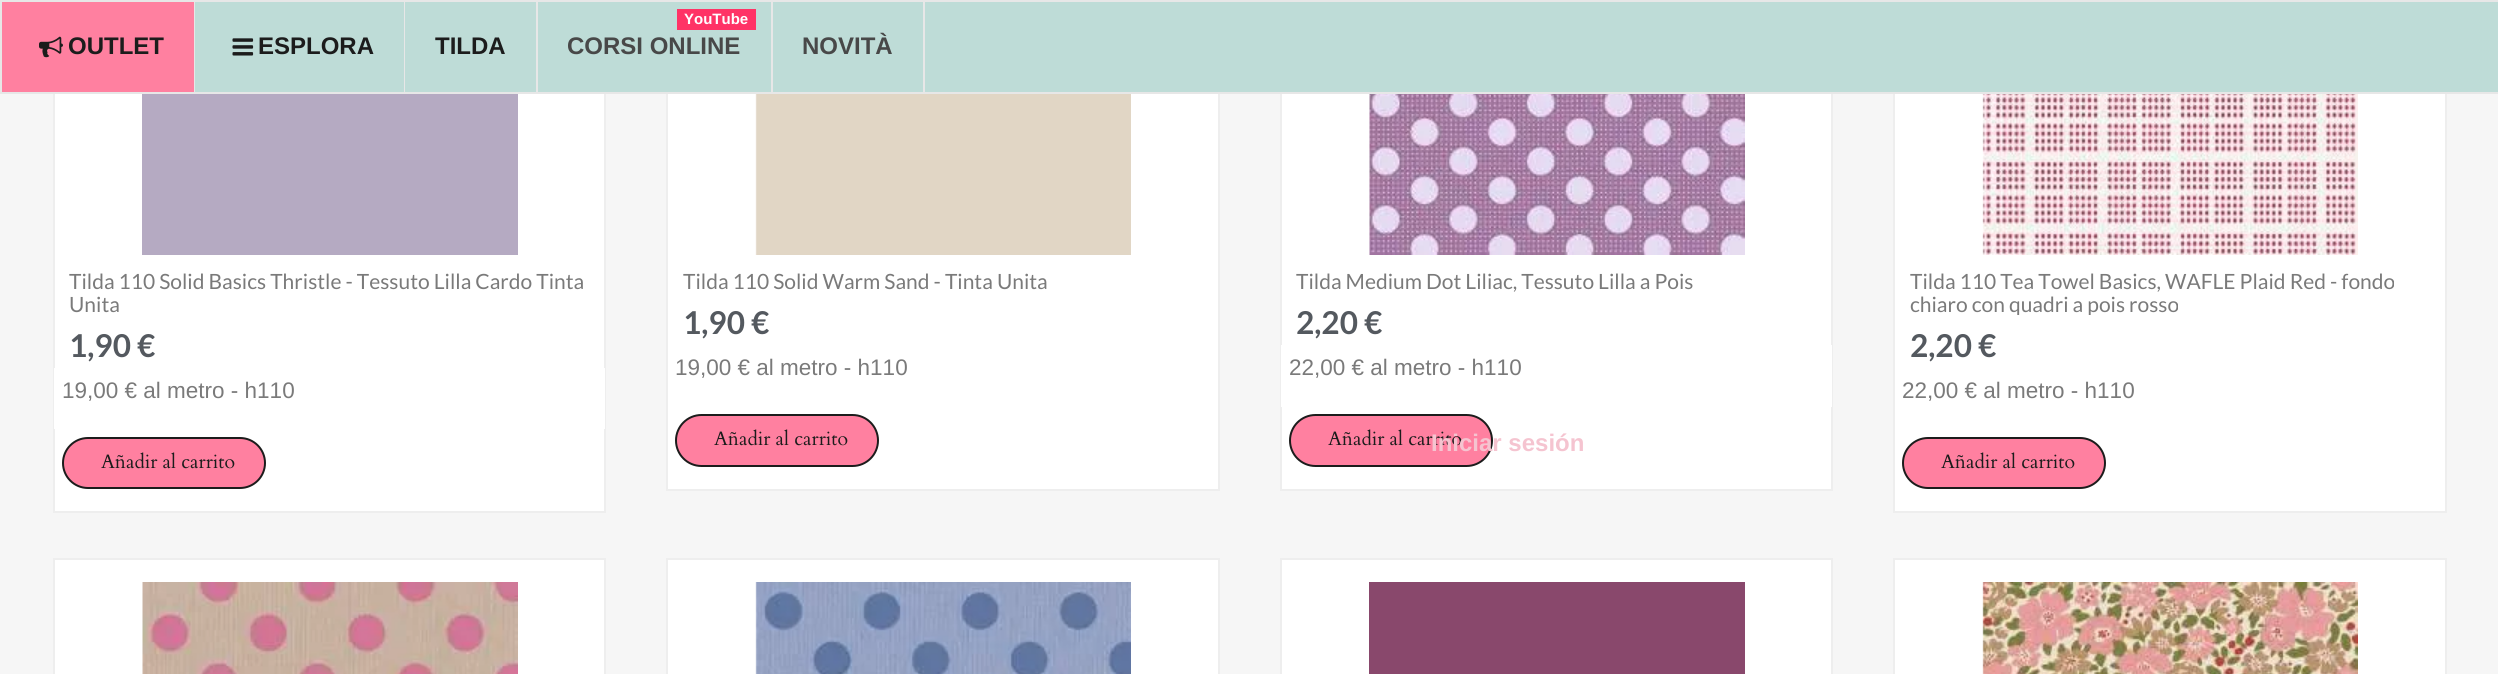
import math
import cairocffi as cairo

surface = cairo.ImageSurface(cairo.FORMAT_RGB24, 2498, 674)
ctx = cairo.Context(surface)
options = cairo.FontOptions()
options.set_hint_metrics(cairo.HINT_METRICS_OFF)
options.set_hint_style(cairo.HINT_STYLE_NONE)
ctx.set_font_options(options)
ctx.set_miter_limit(4)


def rgb(r, g, b):
    ctx.set_source_rgb(r / 255, g / 255, b / 255)


def face(family, size, italic, bold):
    ctx.select_font_face(family, cairo.FONT_SLANT_ITALIC if italic else cairo.FONT_SLANT_NORMAL, cairo.FONT_WEIGHT_BOLD if bold else cairo.FONT_WEIGHT_NORMAL)
    ctx.set_font_size(size)


def label(x, y, s):
    ctx.move_to(x, y)
    ctx.show_text(s)


def rect(x, y, w, h):
    ctx.rectangle(x, y, w, h)
    ctx.fill()


def rrect(x, y, w, h, r):
    ctx.new_sub_path()
    for i, (u, v) in enumerate([(x + w - r, y + h - r), (x + r, y + h - r), (x + r, y + r), (x + w - r, y + r)]):
        ctx.arc(u, v, r, i * math.pi / 2, (i + 1) * math.pi / 2)
    ctx.close_path()


def image(path, x, y, w, h):
    ctx.save()
    ctx.set_source_surface(cairo.ImageSurface.create_from_png(path), x, y)
    ctx.rectangle(x, y, w, h)
    ctx.fill()
    ctx.restore()


rgb(246, 246, 246)
ctx.paint()
rgb(255, 255, 255)
rect(55, 94, 549, 417)
ctx.rectangle(54, -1, 551, 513)
rgb(238, 238, 238)
ctx.stroke()
rgb(255, 255, 255)
rect(668, 94, 550, 395)
ctx.rectangle(667, -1, 552, 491)
rgb(238, 238, 238)
ctx.stroke()
rgb(255, 255, 255)
rect(1282, 94, 549, 395)
ctx.rectangle(1281, -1, 551, 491)
rgb(238, 238, 238)
ctx.stroke()
rgb(255, 255, 255)
rect(1895, 94, 550, 417)
ctx.rectangle(1894, -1, 552, 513)
rgb(238, 238, 238)
ctx.stroke()
rgb(231, 231, 231)
rect(0, 0, 2498, 2)
rect(0, 92, 2498, 2)
rgb(190, 220, 215)
rect(538, 2, 1960, 90)
rgb(231, 231, 231)
rect(194, 2, 1, 90)
rect(0, 2, 2, 90)
rgb(255, 128, 160)
rect(2, 2, 192, 90)
image('image0.png', 39, 36, 24, 22)
face('Liberation Sans', 24, 0, 1)
rgb(28, 28, 28)
label(68, 54, 'OUTLET')
rgb(231, 231, 231)
rect(404, 2, 1, 90)
rgb(190, 220, 215)
rect(195, 2, 209, 90)
image('image1.png', 232, 38, 22, 18)
rgb(28, 28, 28)
label(258, 54, 'ESPLORA')
rgb(231, 231, 231)
rect(536, 2, 2, 90)
rgb(190, 220, 215)
rect(405, 2, 131, 90)
rgb(28, 28, 28)
label(435, 54, 'TILDA')
rgb(231, 231, 231)
rect(771, 2, 2, 90)
rgb(255, 51, 102)
rect(677, 9, 79, 21)
face('Liberation Sans', 15, 0, 1)
rgb(255, 255, 255)
label(684, 24, 'YouTube')
face('Liberation Sans', 24, 0, 1)
rgb(72, 72, 72)
label(567, 54, 'CORSI ONLINE')
rgb(231, 231, 231)
rect(923, 2, 2, 90)
rgb(72, 72, 72)
label(802, 54, 'NOVITÀ')
rgb(181, 170, 194)
rect(142, 94, 376, 161)
face('Lato', 21, 0, 0)
rgb(122, 122, 122)
label(69, 289, 'Tilda 110 Solid Basics Thristle - Tessuto Lilla Cardo Tinta')
label(69, 312, 'Unita')
face('Lato', 31.5, 0, 1)
rgb(84, 89, 95)
label(69, 357, '1,90 €')
rgb(255, 255, 255)
rect(54, 368, 551, 61)
face('Liberation Sans', 22.5, 0, 0)
rgb(122, 122, 122)
label(62, 398, '19,00 € al metro - h110')
rgb(255, 128, 160)
rrect(63, 438, 202, 50, 25)
ctx.fill_preserve()
rgb(28, 28, 28)
ctx.stroke()
face('Cardo', 19.5, 0, 0)
label(101, 468, 'Añadir al carrito')
image('image2.png', 755, 94, 376, 161)
face('Lato', 21, 0, 0)
rgb(122, 122, 122)
label(683, 289, 'Tilda 110 Solid Warm Sand - Tinta Unita')
face('Lato', 31.5, 0, 1)
rgb(84, 89, 95)
label(683, 334, '1,90 €')
face('Liberation Sans', 22.5, 0, 0)
rgb(122, 122, 122)
label(675, 375, '19,00 € al metro - h110')
rgb(255, 128, 160)
rrect(676, 415, 202, 51, 25.5)
ctx.fill_preserve()
rgb(28, 28, 28)
ctx.stroke()
face('Cardo', 19.5, 0, 0)
label(714, 445, 'Añadir al carrito')
image('image3.png', 1369, 94, 376, 161)
face('Lato', 21, 0, 0)
rgb(122, 122, 122)
label(1296, 289, 'Tilda Medium Dot Liliac, Tessuto Lilla a Pois')
face('Lato', 31.5, 0, 1)
rgb(84, 89, 95)
label(1296, 334, '2,20 €')
rgb(255, 255, 255)
rect(1281, 345, 551, 62)
face('Liberation Sans', 22.5, 0, 0)
rgb(122, 122, 122)
label(1289, 375, '22,00 € al metro - h110')
rgb(255, 128, 160)
rrect(1290, 415, 202, 51, 25.5)
ctx.fill_preserve()
rgb(28, 28, 28)
ctx.stroke()
face('Cardo', 19.5, 0, 0)
label(1328, 445, 'Añadir al carrito')
image('image4.png', 1982, 94, 376, 161)
face('Lato', 21, 0, 0)
rgb(122, 122, 122)
label(1910, 289, 'Tilda 110 Tea Towel Basics, WAFLE Plaid Red - fondo')
ctx.save()
ctx.rectangle(1910, 270, 520, 45)
ctx.clip()
label(1910, 312, 'chiaro con quadri a pois rosso')
ctx.restore()
face('Lato', 31.5, 0, 1)
rgb(84, 89, 95)
label(1910, 357, '2,20 €')
face('Liberation Sans', 22.5, 0, 0)
rgb(122, 122, 122)
label(1902, 398, '22,00 € al metro - h110')
rgb(255, 128, 160)
rrect(1903, 438, 202, 50, 25)
ctx.fill_preserve()
rgb(28, 28, 28)
ctx.stroke()
face('Cardo', 19.5, 0, 0)
label(1941, 468, 'Añadir al carrito')
rgb(255, 255, 255)
ctx.rectangle(54, 559, 551, 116)
ctx.fill_preserve()
rgb(238, 238, 238)
ctx.stroke()
image('image5.png', 142, 582, 376, 92)
rgb(255, 255, 255)
ctx.rectangle(667, 559, 552, 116)
ctx.fill_preserve()
rgb(238, 238, 238)
ctx.stroke()
image('image6.png', 755, 582, 376, 92)
rgb(255, 255, 255)
ctx.rectangle(1281, 559, 551, 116)
ctx.fill_preserve()
rgb(238, 238, 238)
ctx.stroke()
rgb(137, 72, 108)
rect(1369, 582, 376, 92)
rgb(255, 255, 255)
ctx.rectangle(1894, 559, 552, 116)
ctx.fill_preserve()
rgb(238, 238, 238)
ctx.stroke()
image('image7.png', 1982, 582, 376, 92)
face('Liberation Sans', 24, 0, 1)
rgb(245, 196, 208)
label(1431, 451, 'Iniciar sesión')
surface.write_to_png('render.png')
